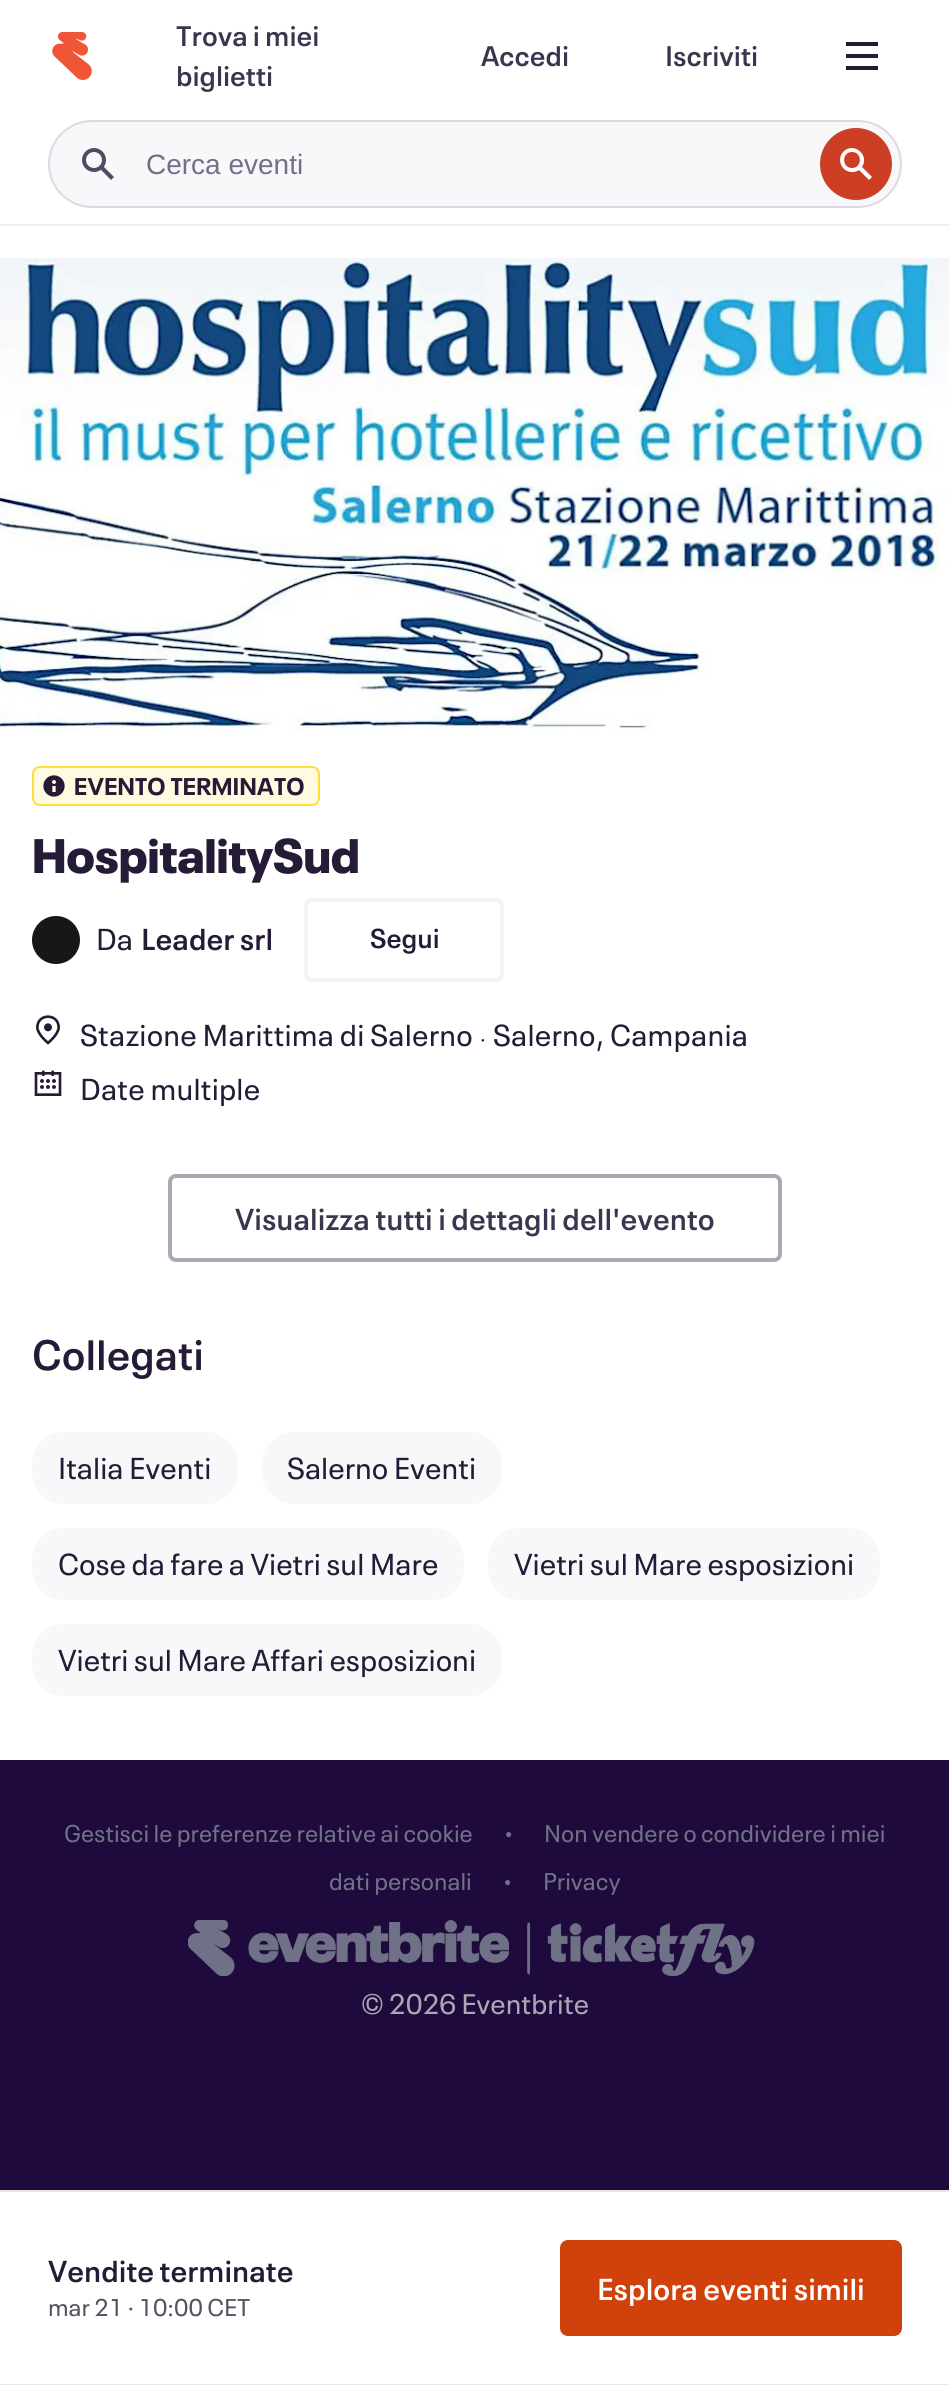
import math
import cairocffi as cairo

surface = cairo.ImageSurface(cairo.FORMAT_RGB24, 949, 2385)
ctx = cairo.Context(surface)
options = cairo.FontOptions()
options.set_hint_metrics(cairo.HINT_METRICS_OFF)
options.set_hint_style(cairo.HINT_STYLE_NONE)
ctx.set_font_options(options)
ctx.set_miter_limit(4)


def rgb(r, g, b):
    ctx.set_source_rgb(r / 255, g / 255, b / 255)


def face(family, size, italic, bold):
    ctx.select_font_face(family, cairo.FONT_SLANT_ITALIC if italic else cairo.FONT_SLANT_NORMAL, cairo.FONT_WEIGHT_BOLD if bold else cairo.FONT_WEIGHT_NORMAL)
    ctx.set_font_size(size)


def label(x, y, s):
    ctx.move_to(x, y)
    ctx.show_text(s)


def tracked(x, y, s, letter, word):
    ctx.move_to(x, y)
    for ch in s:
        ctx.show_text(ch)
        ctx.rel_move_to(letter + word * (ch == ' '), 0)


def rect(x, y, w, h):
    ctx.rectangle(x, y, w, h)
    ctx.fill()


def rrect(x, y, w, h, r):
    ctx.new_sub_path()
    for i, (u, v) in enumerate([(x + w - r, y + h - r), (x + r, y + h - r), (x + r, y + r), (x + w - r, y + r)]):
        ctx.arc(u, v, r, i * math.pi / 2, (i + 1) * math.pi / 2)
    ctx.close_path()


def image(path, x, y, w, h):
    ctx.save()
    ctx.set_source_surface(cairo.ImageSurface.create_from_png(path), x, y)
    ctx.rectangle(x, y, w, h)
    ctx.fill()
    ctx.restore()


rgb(255, 255, 255)
ctx.paint()
rgb(238, 237, 242)
rect(0, 224, 949, 2)
image('image0.png', 52, 32, 40, 48)
face('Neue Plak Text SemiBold', 28, 0, 0)
rgb(57, 54, 79)
label(176, 46, 'Trova i miei')
label(176, 86, 'biglietti')
label(481, 66, 'Accedi')
label(665, 66, 'Iscriviti')
image('image1.png', 846, 42, 32, 28)
rgb(248, 247, 250)
rrect(49, 121, 852, 86, 43)
ctx.fill_preserve()
rgb(219, 218, 227)
ctx.stroke()
image('image2.png', 82, 148, 32, 32)
face('Liberation Sans', 28, 0, 0)
rgb(111, 114, 135)
label(146, 174, 'Cerca eventi')
rgb(204, 63, 36)
ctx.new_path()
ctx.arc(856, 164, 36, 0, 2 * math.pi)
ctx.fill()
rgb(255, 255, 255)
ctx.set_fill_rule(cairo.FILL_RULE_EVEN_ODD)
ctx.new_path()
ctx.move_to(862, 167)
ctx.curve_to(865.5, 161.5, 864.5, 155, 859.5, 151)
ctx.curve_to(855, 147, 848, 147, 843.5, 151.5)
ctx.curve_to(839, 156, 839, 163, 843, 168)
ctx.curve_to(847, 172.5, 854, 173.5, 859, 170)
ctx.line_to(869, 180)
ctx.line_to(872, 177)
ctx.close_path()
ctx.move_to(852, 168)
ctx.curve_to(862.5, 168, 862.5, 152, 852, 152)
ctx.curve_to(841.5, 152, 841.5, 168, 852, 168)
ctx.close_path()
ctx.fill()
image('image3.png', 0, 258, 949, 474)
rgb(255, 250, 224)
rrect(33, 767, 286, 38, 7)
ctx.fill_preserve()
rgb(255, 222, 59)
ctx.stroke()
image('image4.png', 43, 775, 22, 22)
face('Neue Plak', 24, 0, 1)
rgb(38, 27, 54)
tracked(74, 795, 'EVENTO TERMINATO', 0.4, 0)
face('Neue Plak Black', 48, 0, 0)
label(32, 873, 'HospitalitySud')
rgb(22, 23, 25)
ctx.new_path()
ctx.arc(56, 940, 24, 0, 2 * math.pi)
ctx.fill()
face('Neue Plak Text', 30, 0, 0)
rgb(38, 27, 54)
label(96, 950, 'Da')
face('Neue Plak Text SemiBold', 30, 0, 0)
label(141, 950, 'Leader srl')
rrect(306, 900, 196, 80, 6)
rgb(244, 244, 245)
ctx.set_line_width(4)
ctx.stroke()
face('Neue Plak Text SemiBold', 27, 0, 0)
rgb(38, 27, 54)
label(370, 948, 'Segui')
image('image5.png', 36, 1015, 24, 30)
face('Neue Plak Text', 30, 0, 0)
tracked(80, 1046, 'Stazione Marittima di Salerno', 0.2, 0)
face('Liberation Sans', 6, 0, 0)
tracked(481, 1042, '●', 0.2, 0)
face('Neue Plak Text', 30, 0, 0)
tracked(493, 1046, 'Salerno, Campania', 0.2, 0)
image('image6.png', 34, 1070, 28, 26)
tracked(80, 1100, 'Date multiple', 0.2, 0)
rrect(170, 1176, 610, 84, 6)
rgb(169, 168, 179)
ctx.stroke()
face('Neue Plak Text SemiBold', 30, 0, 0)
rgb(57, 54, 79)
label(235, 1230, 'Visualizza tutti i dettagli dell\'evento')
face('Neue Plak Text SemiBold', 42, 0, 0)
rgb(38, 27, 54)
label(32, 1370, 'Collegati')
rgb(248, 247, 250)
rrect(32, 1432, 206, 72, 32)
ctx.fill()
face('Neue Plak Text', 30, 0, 0)
rgb(38, 27, 54)
label(58, 1479, 'Italia Eventi')
rgb(248, 247, 250)
rrect(262, 1432, 240, 72, 32)
ctx.fill()
rgb(38, 27, 54)
label(287, 1479, 'Salerno Eventi')
rgb(248, 247, 250)
rrect(32, 1528, 432, 72, 32)
ctx.fill()
rgb(38, 27, 54)
label(58, 1575, 'Cose da fare a Vietri sul Mare')
rgb(248, 247, 250)
rrect(488, 1528, 392, 72, 32)
ctx.fill()
rgb(38, 27, 54)
label(514, 1575, 'Vietri sul Mare esposizioni')
rgb(248, 247, 250)
rrect(32, 1624, 470, 72, 32)
ctx.fill()
rgb(38, 27, 54)
label(58, 1671, 'Vietri sul Mare Affari esposizioni')
rgb(232, 232, 231)
rect(0, 2190, 949, 2)
rect(0, 2384, 949, 1)
face('Neue Plak Text SemiBold', 30, 0, 0)
rgb(38, 27, 54)
label(48, 2282, 'Vendite terminate')
face('Neue Plak Text', 24, 0, 0)
rgb(88, 81, 99)
label(48, 2316, 'mar 21 · 10:00 CET')
rgb(209, 65, 12)
rrect(560, 2240, 342, 96, 8)
ctx.fill()
face('Neue Plak Text SemiBold', 30, 0, 0)
rgb(255, 255, 255)
label(597, 2300, 'Esplora eventi simili')
rgb(30, 10, 60)
rect(0, 1760, 949, 430)
face('Neue Plak Text', 24, 0, 0)
rgb(111, 114, 135)
label(64, 1842, 'Gestisci le preferenze relative ai cookie')
face('Liberation Sans', 12, 0, 0)
label(505, 1838, '●')
face('Neue Plak Text', 24, 0, 0)
label(544, 1842, 'Non vendere o condividere i miei')
label(329, 1890, 'dati personali')
face('Liberation Sans', 12, 0, 0)
label(504, 1886, '●')
face('Neue Plak Text', 24, 0, 0)
label(543, 1890, 'Privacy')
image('image7.png', 188, 1920, 567, 56)
face('Neue Plak Text', 28, 0, 0)
rgb(169, 168, 179)
label(361, 2014, '© 2026 Eventbrite')
surface.write_to_png('render.png')
